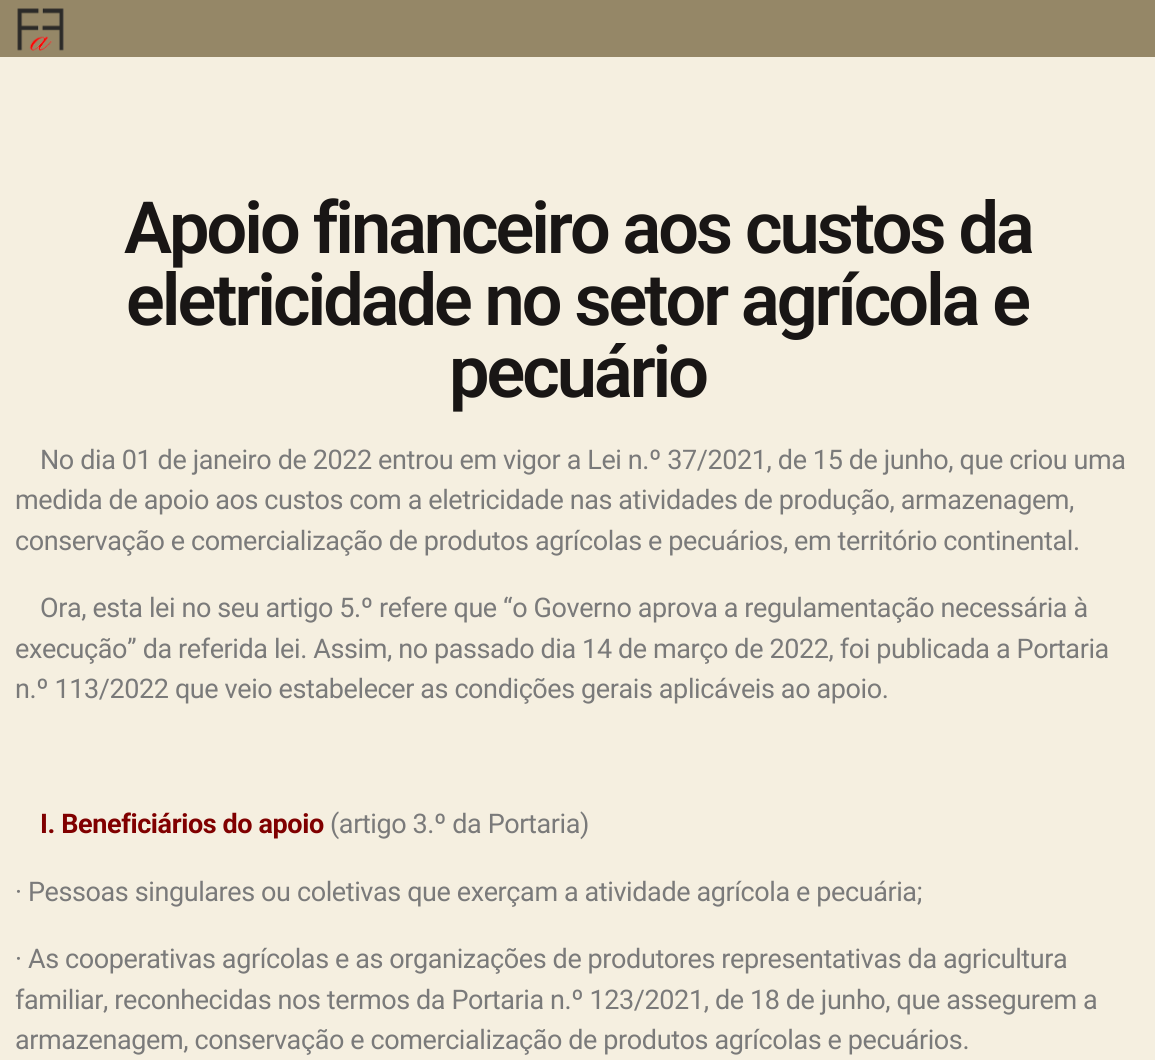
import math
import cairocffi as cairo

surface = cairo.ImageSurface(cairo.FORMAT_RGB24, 1155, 1060)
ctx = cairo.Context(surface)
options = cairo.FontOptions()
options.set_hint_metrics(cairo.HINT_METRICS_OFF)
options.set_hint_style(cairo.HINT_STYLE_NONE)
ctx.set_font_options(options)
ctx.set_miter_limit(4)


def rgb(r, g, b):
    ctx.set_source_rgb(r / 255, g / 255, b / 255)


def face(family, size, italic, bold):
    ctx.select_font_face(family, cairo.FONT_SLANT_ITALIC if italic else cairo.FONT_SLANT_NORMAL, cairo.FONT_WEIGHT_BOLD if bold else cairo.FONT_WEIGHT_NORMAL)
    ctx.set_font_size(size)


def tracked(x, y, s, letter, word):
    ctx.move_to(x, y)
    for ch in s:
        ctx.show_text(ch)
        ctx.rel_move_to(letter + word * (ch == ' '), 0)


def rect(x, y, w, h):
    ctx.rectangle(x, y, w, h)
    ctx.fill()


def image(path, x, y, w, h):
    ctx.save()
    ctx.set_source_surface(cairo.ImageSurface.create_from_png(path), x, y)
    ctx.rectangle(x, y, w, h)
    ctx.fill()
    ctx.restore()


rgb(245, 239, 224)
ctx.paint()
rgb(149, 135, 103)
rect(0, 0, 1155, 57)
image('image0.png', 17, 8, 47, 43)
face('Roboto SemiBold', 72, 0, 0)
rgb(25, 22, 21)
tracked(124, 253, 'Apoio financeiro aos custos da', -3, 0)
tracked(126, 325, 'eletricidade no setor agrícola e', -3, 0)
tracked(449, 397, 'pecuário', -3, 0)
face('Roboto', 27, 0, 0)
rgb(122, 122, 122)
tracked(40, 469, 'No dia 01 de janeiro de 2022 entrou em vigor a Lei n.º 37/2021, de 15 de junho, que criou uma', -0.4, 0)
tracked(15, 509, 'medida de apoio aos custos com a eletricidade nas atividades de produção, armazenagem,', -0.4, 0)
tracked(15, 550, 'conservação e comercialização de produtos agrícolas e pecuários, em território continental.', -0.4, 0)
tracked(40, 617, 'Ora, esta lei no seu artigo 5.º refere que “o Governo aprova a regulamentação necessária à', -0.4, 0)
tracked(15, 658, 'execução” da referida lei. Assim, no passado dia 14 de março de 2022, foi publicada a Portaria', -0.4, 0)
tracked(15, 698, 'n.º 113/2022 que veio estabelecer as condições gerais aplicáveis ao apoio.', -0.4, 0)
face('Roboto', 27, 0, 1)
rgb(128, 0, 0)
tracked(40, 833, 'I. Beneficiários do apoio', -0.4, 0)
face('Roboto', 27, 0, 0)
rgb(122, 122, 122)
tracked(330, 833, '(artigo 3.º da Portaria)', -0.4, 0)
tracked(15, 901, '· Pessoas singulares ou coletivas que exerçam a atividade agrícola e pecuária;', -0.4, 0)
tracked(15, 968, '· As cooperativas agrícolas e as organizações de produtores representativas da agricultura', -0.4, 0)
tracked(15, 1009, 'familiar, reconhecidas nos termos da Portaria n.º 123/2021, de 18 de junho, que assegurem a', -0.4, 0)
tracked(15, 1049, 'armazenagem, conservação e comercialização de produtos agrícolas e pecuários.', -0.4, 0)
surface.write_to_png('render.png')
